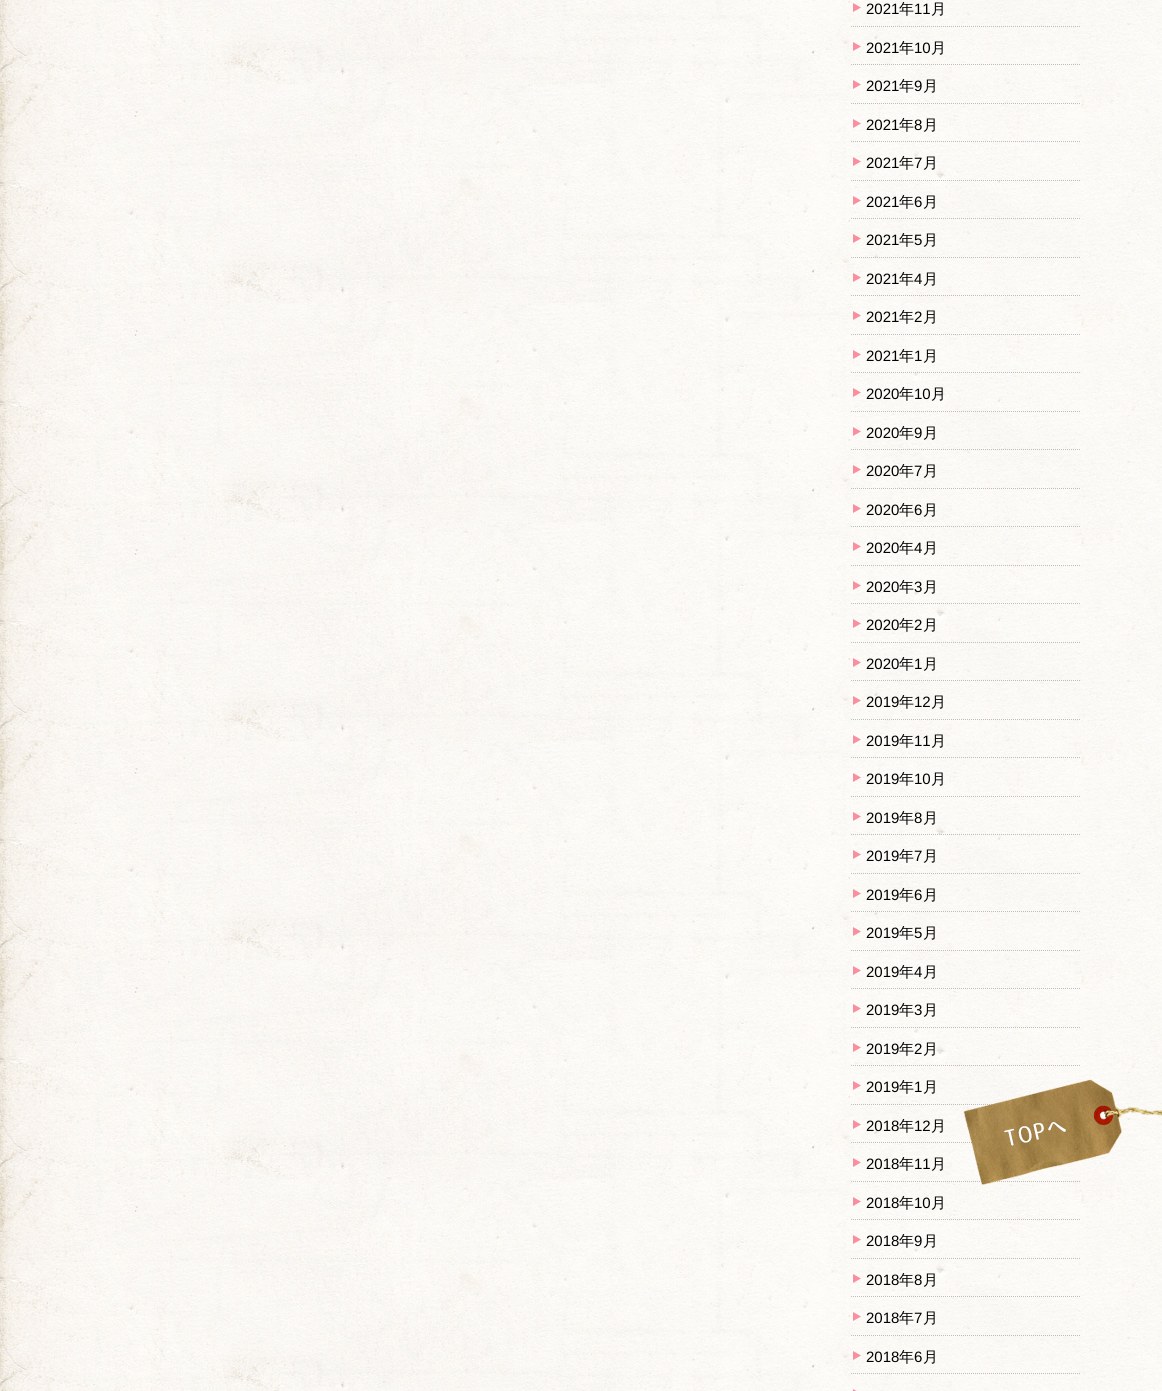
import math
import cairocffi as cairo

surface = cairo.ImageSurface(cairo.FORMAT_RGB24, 1162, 1391)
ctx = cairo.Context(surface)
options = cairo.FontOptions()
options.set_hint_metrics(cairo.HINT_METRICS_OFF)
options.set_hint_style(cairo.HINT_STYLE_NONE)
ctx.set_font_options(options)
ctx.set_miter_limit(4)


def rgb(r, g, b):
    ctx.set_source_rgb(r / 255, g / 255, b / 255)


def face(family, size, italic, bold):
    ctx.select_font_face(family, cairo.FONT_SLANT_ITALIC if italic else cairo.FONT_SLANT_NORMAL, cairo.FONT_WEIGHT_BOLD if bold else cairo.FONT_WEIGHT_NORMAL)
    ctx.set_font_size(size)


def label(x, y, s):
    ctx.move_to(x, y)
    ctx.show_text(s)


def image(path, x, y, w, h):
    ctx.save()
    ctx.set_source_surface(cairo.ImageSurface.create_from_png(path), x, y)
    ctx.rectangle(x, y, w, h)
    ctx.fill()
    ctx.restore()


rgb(255, 255, 255)
ctx.paint()
image('image0.png', 0, 0, 1162, 1391)
image('image1.png', 853, 3, 8, 9)
ctx.new_path()
ctx.move_to(851, 26.5)
ctx.line_to(1081, 26.5)
rgb(190, 190, 190)
ctx.set_line_width(1)
ctx.set_dash([1, 1])
ctx.stroke()
face('Liberation Sans', 15, 0, 0)
rgb(0, 0, 0)
label(866, 14, '2021')
face('WenQuanYi Zen Hei Medium', 15, 0, 0)
label(899, 14, '年')
face('Liberation Sans', 15, 0, 0)
label(914, 14, '11')
face('WenQuanYi Zen Hei Medium', 15, 0, 0)
label(931, 14, '月')
image('image2.png', 853, 42, 8, 9)
ctx.new_path()
ctx.move_to(851, 64.5)
ctx.line_to(1081, 64.5)
rgb(190, 190, 190)
ctx.stroke()
face('Liberation Sans', 15, 0, 0)
rgb(0, 0, 0)
label(866, 53, '2021')
face('WenQuanYi Zen Hei Medium', 15, 0, 0)
label(899, 53, '年')
face('Liberation Sans', 15, 0, 0)
label(914, 53, '10')
face('WenQuanYi Zen Hei Medium', 15, 0, 0)
label(931, 53, '月')
image('image3.png', 853, 80, 8, 9)
ctx.new_path()
ctx.move_to(851, 103.5)
ctx.line_to(1081, 103.5)
rgb(190, 190, 190)
ctx.stroke()
face('Liberation Sans', 15, 0, 0)
rgb(0, 0, 0)
label(866, 91, '2021')
face('WenQuanYi Zen Hei Medium', 15, 0, 0)
label(899, 91, '年')
face('Liberation Sans', 15, 0, 0)
label(914, 91, '9')
face('WenQuanYi Zen Hei Medium', 15, 0, 0)
label(923, 91, '月')
image('image4.png', 853, 119, 8, 9)
ctx.new_path()
ctx.move_to(851, 141.5)
ctx.line_to(1081, 141.5)
rgb(190, 190, 190)
ctx.stroke()
face('Liberation Sans', 15, 0, 0)
rgb(0, 0, 0)
label(866, 130, '2021')
face('WenQuanYi Zen Hei Medium', 15, 0, 0)
label(899, 130, '年')
face('Liberation Sans', 15, 0, 0)
label(914, 130, '8')
face('WenQuanYi Zen Hei Medium', 15, 0, 0)
label(923, 130, '月')
image('image5.png', 853, 157, 8, 9)
ctx.new_path()
ctx.move_to(851, 180.5)
ctx.line_to(1081, 180.5)
rgb(190, 190, 190)
ctx.stroke()
face('Liberation Sans', 15, 0, 0)
rgb(0, 0, 0)
label(866, 168, '2021')
face('WenQuanYi Zen Hei Medium', 15, 0, 0)
label(899, 168, '年')
face('Liberation Sans', 15, 0, 0)
label(914, 168, '7')
face('WenQuanYi Zen Hei Medium', 15, 0, 0)
label(923, 168, '月')
image('image6.png', 853, 196, 8, 9)
ctx.new_path()
ctx.move_to(851, 218.5)
ctx.line_to(1081, 218.5)
rgb(190, 190, 190)
ctx.stroke()
face('Liberation Sans', 15, 0, 0)
rgb(0, 0, 0)
label(866, 207, '2021')
face('WenQuanYi Zen Hei Medium', 15, 0, 0)
label(899, 207, '年')
face('Liberation Sans', 15, 0, 0)
label(914, 207, '6')
face('WenQuanYi Zen Hei Medium', 15, 0, 0)
label(923, 207, '月')
image('image7.png', 853, 234, 8, 9)
ctx.new_path()
ctx.move_to(851, 257.5)
ctx.line_to(1081, 257.5)
rgb(190, 190, 190)
ctx.stroke()
face('Liberation Sans', 15, 0, 0)
rgb(0, 0, 0)
label(866, 245, '2021')
face('WenQuanYi Zen Hei Medium', 15, 0, 0)
label(899, 245, '年')
face('Liberation Sans', 15, 0, 0)
label(914, 245, '5')
face('WenQuanYi Zen Hei Medium', 15, 0, 0)
label(923, 245, '月')
image('image8.png', 853, 273, 8, 9)
ctx.new_path()
ctx.move_to(851, 295.5)
ctx.line_to(1081, 295.5)
rgb(190, 190, 190)
ctx.stroke()
face('Liberation Sans', 15, 0, 0)
rgb(0, 0, 0)
label(866, 284, '2021')
face('WenQuanYi Zen Hei Medium', 15, 0, 0)
label(899, 284, '年')
face('Liberation Sans', 15, 0, 0)
label(914, 284, '4')
face('WenQuanYi Zen Hei Medium', 15, 0, 0)
label(923, 284, '月')
image('image9.png', 853, 311, 8, 9)
ctx.new_path()
ctx.move_to(851, 334.5)
ctx.line_to(1081, 334.5)
rgb(190, 190, 190)
ctx.stroke()
face('Liberation Sans', 15, 0, 0)
rgb(0, 0, 0)
label(866, 322, '2021')
face('WenQuanYi Zen Hei Medium', 15, 0, 0)
label(899, 322, '年')
face('Liberation Sans', 15, 0, 0)
label(914, 322, '2')
face('WenQuanYi Zen Hei Medium', 15, 0, 0)
label(923, 322, '月')
image('image10.png', 853, 350, 8, 9)
ctx.new_path()
ctx.move_to(851, 372.5)
ctx.line_to(1081, 372.5)
rgb(190, 190, 190)
ctx.stroke()
face('Liberation Sans', 15, 0, 0)
rgb(0, 0, 0)
label(866, 361, '2021')
face('WenQuanYi Zen Hei Medium', 15, 0, 0)
label(899, 361, '年')
face('Liberation Sans', 15, 0, 0)
label(914, 361, '1')
face('WenQuanYi Zen Hei Medium', 15, 0, 0)
label(923, 361, '月')
image('image11.png', 853, 388, 8, 9)
ctx.new_path()
ctx.move_to(851, 411.5)
ctx.line_to(1081, 411.5)
rgb(190, 190, 190)
ctx.stroke()
face('Liberation Sans', 15, 0, 0)
rgb(0, 0, 0)
label(866, 399, '2020')
face('WenQuanYi Zen Hei Medium', 15, 0, 0)
label(899, 399, '年')
face('Liberation Sans', 15, 0, 0)
label(914, 399, '10')
face('WenQuanYi Zen Hei Medium', 15, 0, 0)
label(931, 399, '月')
image('image12.png', 853, 427, 8, 9)
ctx.new_path()
ctx.move_to(851, 449.5)
ctx.line_to(1081, 449.5)
rgb(190, 190, 190)
ctx.stroke()
face('Liberation Sans', 15, 0, 0)
rgb(0, 0, 0)
label(866, 438, '2020')
face('WenQuanYi Zen Hei Medium', 15, 0, 0)
label(899, 438, '年')
face('Liberation Sans', 15, 0, 0)
label(914, 438, '9')
face('WenQuanYi Zen Hei Medium', 15, 0, 0)
label(923, 438, '月')
image('image13.png', 853, 465, 8, 9)
ctx.new_path()
ctx.move_to(851, 488.5)
ctx.line_to(1081, 488.5)
rgb(190, 190, 190)
ctx.stroke()
face('Liberation Sans', 15, 0, 0)
rgb(0, 0, 0)
label(866, 476, '2020')
face('WenQuanYi Zen Hei Medium', 15, 0, 0)
label(899, 476, '年')
face('Liberation Sans', 15, 0, 0)
label(914, 476, '7')
face('WenQuanYi Zen Hei Medium', 15, 0, 0)
label(923, 476, '月')
image('image14.png', 853, 504, 8, 9)
ctx.new_path()
ctx.move_to(851, 526.5)
ctx.line_to(1081, 526.5)
rgb(190, 190, 190)
ctx.stroke()
face('Liberation Sans', 15, 0, 0)
rgb(0, 0, 0)
label(866, 515, '2020')
face('WenQuanYi Zen Hei Medium', 15, 0, 0)
label(899, 515, '年')
face('Liberation Sans', 15, 0, 0)
label(914, 515, '6')
face('WenQuanYi Zen Hei Medium', 15, 0, 0)
label(923, 515, '月')
image('image15.png', 853, 542, 8, 9)
ctx.new_path()
ctx.move_to(851, 565.5)
ctx.line_to(1081, 565.5)
rgb(190, 190, 190)
ctx.stroke()
face('Liberation Sans', 15, 0, 0)
rgb(0, 0, 0)
label(866, 553, '2020')
face('WenQuanYi Zen Hei Medium', 15, 0, 0)
label(899, 553, '年')
face('Liberation Sans', 15, 0, 0)
label(914, 553, '4')
face('WenQuanYi Zen Hei Medium', 15, 0, 0)
label(923, 553, '月')
image('image16.png', 853, 581, 8, 9)
ctx.new_path()
ctx.move_to(851, 603.5)
ctx.line_to(1081, 603.5)
rgb(190, 190, 190)
ctx.stroke()
face('Liberation Sans', 15, 0, 0)
rgb(0, 0, 0)
label(866, 592, '2020')
face('WenQuanYi Zen Hei Medium', 15, 0, 0)
label(899, 592, '年')
face('Liberation Sans', 15, 0, 0)
label(914, 592, '3')
face('WenQuanYi Zen Hei Medium', 15, 0, 0)
label(923, 592, '月')
image('image17.png', 853, 619, 8, 9)
ctx.new_path()
ctx.move_to(851, 642.5)
ctx.line_to(1081, 642.5)
rgb(190, 190, 190)
ctx.stroke()
face('Liberation Sans', 15, 0, 0)
rgb(0, 0, 0)
label(866, 630, '2020')
face('WenQuanYi Zen Hei Medium', 15, 0, 0)
label(899, 630, '年')
face('Liberation Sans', 15, 0, 0)
label(914, 630, '2')
face('WenQuanYi Zen Hei Medium', 15, 0, 0)
label(923, 630, '月')
image('image18.png', 853, 658, 8, 9)
ctx.new_path()
ctx.move_to(851, 680.5)
ctx.line_to(1081, 680.5)
rgb(190, 190, 190)
ctx.stroke()
face('Liberation Sans', 15, 0, 0)
rgb(0, 0, 0)
label(866, 669, '2020')
face('WenQuanYi Zen Hei Medium', 15, 0, 0)
label(899, 669, '年')
face('Liberation Sans', 15, 0, 0)
label(914, 669, '1')
face('WenQuanYi Zen Hei Medium', 15, 0, 0)
label(923, 669, '月')
image('image19.png', 853, 696, 8, 9)
ctx.new_path()
ctx.move_to(851, 719.5)
ctx.line_to(1081, 719.5)
rgb(190, 190, 190)
ctx.stroke()
face('Liberation Sans', 15, 0, 0)
rgb(0, 0, 0)
label(866, 707, '2019')
face('WenQuanYi Zen Hei Medium', 15, 0, 0)
label(899, 707, '年')
face('Liberation Sans', 15, 0, 0)
label(914, 707, '12')
face('WenQuanYi Zen Hei Medium', 15, 0, 0)
label(931, 707, '月')
image('image20.png', 853, 735, 8, 9)
ctx.new_path()
ctx.move_to(851, 757.5)
ctx.line_to(1081, 757.5)
rgb(190, 190, 190)
ctx.stroke()
face('Liberation Sans', 15, 0, 0)
rgb(0, 0, 0)
label(866, 746, '2019')
face('WenQuanYi Zen Hei Medium', 15, 0, 0)
label(899, 746, '年')
face('Liberation Sans', 15, 0, 0)
label(914, 746, '11')
face('WenQuanYi Zen Hei Medium', 15, 0, 0)
label(931, 746, '月')
image('image21.png', 853, 773, 8, 9)
ctx.new_path()
ctx.move_to(851, 796.5)
ctx.line_to(1081, 796.5)
rgb(190, 190, 190)
ctx.stroke()
face('Liberation Sans', 15, 0, 0)
rgb(0, 0, 0)
label(866, 784, '2019')
face('WenQuanYi Zen Hei Medium', 15, 0, 0)
label(899, 784, '年')
face('Liberation Sans', 15, 0, 0)
label(914, 784, '10')
face('WenQuanYi Zen Hei Medium', 15, 0, 0)
label(931, 784, '月')
image('image22.png', 853, 812, 8, 9)
ctx.new_path()
ctx.move_to(851, 834.5)
ctx.line_to(1081, 834.5)
rgb(190, 190, 190)
ctx.stroke()
face('Liberation Sans', 15, 0, 0)
rgb(0, 0, 0)
label(866, 823, '2019')
face('WenQuanYi Zen Hei Medium', 15, 0, 0)
label(899, 823, '年')
face('Liberation Sans', 15, 0, 0)
label(914, 823, '8')
face('WenQuanYi Zen Hei Medium', 15, 0, 0)
label(923, 823, '月')
image('image23.png', 853, 850, 8, 9)
ctx.new_path()
ctx.move_to(851, 873.5)
ctx.line_to(1081, 873.5)
rgb(190, 190, 190)
ctx.stroke()
face('Liberation Sans', 15, 0, 0)
rgb(0, 0, 0)
label(866, 861, '2019')
face('WenQuanYi Zen Hei Medium', 15, 0, 0)
label(899, 861, '年')
face('Liberation Sans', 15, 0, 0)
label(914, 861, '7')
face('WenQuanYi Zen Hei Medium', 15, 0, 0)
label(923, 861, '月')
image('image24.png', 853, 889, 8, 9)
ctx.new_path()
ctx.move_to(851, 911.5)
ctx.line_to(1081, 911.5)
rgb(190, 190, 190)
ctx.stroke()
face('Liberation Sans', 15, 0, 0)
rgb(0, 0, 0)
label(866, 900, '2019')
face('WenQuanYi Zen Hei Medium', 15, 0, 0)
label(899, 900, '年')
face('Liberation Sans', 15, 0, 0)
label(914, 900, '6')
face('WenQuanYi Zen Hei Medium', 15, 0, 0)
label(923, 900, '月')
image('image25.png', 853, 927, 8, 9)
ctx.new_path()
ctx.move_to(851, 950.5)
ctx.line_to(1081, 950.5)
rgb(190, 190, 190)
ctx.stroke()
face('Liberation Sans', 15, 0, 0)
rgb(0, 0, 0)
label(866, 938, '2019')
face('WenQuanYi Zen Hei Medium', 15, 0, 0)
label(899, 938, '年')
face('Liberation Sans', 15, 0, 0)
label(914, 938, '5')
face('WenQuanYi Zen Hei Medium', 15, 0, 0)
label(923, 938, '月')
image('image26.png', 853, 966, 8, 9)
ctx.new_path()
ctx.move_to(851, 988.5)
ctx.line_to(1081, 988.5)
rgb(190, 190, 190)
ctx.stroke()
face('Liberation Sans', 15, 0, 0)
rgb(0, 0, 0)
label(866, 977, '2019')
face('WenQuanYi Zen Hei Medium', 15, 0, 0)
label(899, 977, '年')
face('Liberation Sans', 15, 0, 0)
label(914, 977, '4')
face('WenQuanYi Zen Hei Medium', 15, 0, 0)
label(923, 977, '月')
image('image27.png', 853, 1004, 8, 9)
ctx.new_path()
ctx.move_to(851, 1027.5)
ctx.line_to(1081, 1027.5)
rgb(190, 190, 190)
ctx.stroke()
face('Liberation Sans', 15, 0, 0)
rgb(0, 0, 0)
label(866, 1015, '2019')
face('WenQuanYi Zen Hei Medium', 15, 0, 0)
label(899, 1015, '年')
face('Liberation Sans', 15, 0, 0)
label(914, 1015, '3')
face('WenQuanYi Zen Hei Medium', 15, 0, 0)
label(923, 1015, '月')
image('image28.png', 853, 1043, 8, 9)
ctx.new_path()
ctx.move_to(851, 1065.5)
ctx.line_to(1081, 1065.5)
rgb(190, 190, 190)
ctx.stroke()
face('Liberation Sans', 15, 0, 0)
rgb(0, 0, 0)
label(866, 1054, '2019')
face('WenQuanYi Zen Hei Medium', 15, 0, 0)
label(899, 1054, '年')
face('Liberation Sans', 15, 0, 0)
label(914, 1054, '2')
face('WenQuanYi Zen Hei Medium', 15, 0, 0)
label(923, 1054, '月')
image('image29.png', 853, 1081, 8, 9)
ctx.new_path()
ctx.move_to(851, 1104.5)
ctx.line_to(1081, 1104.5)
rgb(190, 190, 190)
ctx.stroke()
face('Liberation Sans', 15, 0, 0)
rgb(0, 0, 0)
label(866, 1092, '2019')
face('WenQuanYi Zen Hei Medium', 15, 0, 0)
label(899, 1092, '年')
face('Liberation Sans', 15, 0, 0)
label(914, 1092, '1')
face('WenQuanYi Zen Hei Medium', 15, 0, 0)
label(923, 1092, '月')
image('image30.png', 853, 1120, 8, 9)
ctx.new_path()
ctx.move_to(851, 1142.5)
ctx.line_to(1081, 1142.5)
rgb(190, 190, 190)
ctx.stroke()
face('Liberation Sans', 15, 0, 0)
rgb(0, 0, 0)
label(866, 1131, '2018')
face('WenQuanYi Zen Hei Medium', 15, 0, 0)
label(899, 1131, '年')
face('Liberation Sans', 15, 0, 0)
label(914, 1131, '12')
face('WenQuanYi Zen Hei Medium', 15, 0, 0)
label(931, 1131, '月')
image('image31.png', 853, 1158, 8, 9)
ctx.new_path()
ctx.move_to(851, 1181.5)
ctx.line_to(1081, 1181.5)
rgb(190, 190, 190)
ctx.stroke()
face('Liberation Sans', 15, 0, 0)
rgb(0, 0, 0)
label(866, 1169, '2018')
face('WenQuanYi Zen Hei Medium', 15, 0, 0)
label(899, 1169, '年')
face('Liberation Sans', 15, 0, 0)
label(914, 1169, '11')
face('WenQuanYi Zen Hei Medium', 15, 0, 0)
label(931, 1169, '月')
image('image32.png', 853, 1197, 8, 9)
ctx.new_path()
ctx.move_to(851, 1219.5)
ctx.line_to(1081, 1219.5)
rgb(190, 190, 190)
ctx.stroke()
face('Liberation Sans', 15, 0, 0)
rgb(0, 0, 0)
label(866, 1208, '2018')
face('WenQuanYi Zen Hei Medium', 15, 0, 0)
label(899, 1208, '年')
face('Liberation Sans', 15, 0, 0)
label(914, 1208, '10')
face('WenQuanYi Zen Hei Medium', 15, 0, 0)
label(931, 1208, '月')
image('image33.png', 853, 1235, 8, 9)
ctx.new_path()
ctx.move_to(851, 1258.5)
ctx.line_to(1081, 1258.5)
rgb(190, 190, 190)
ctx.stroke()
face('Liberation Sans', 15, 0, 0)
rgb(0, 0, 0)
label(866, 1246, '2018')
face('WenQuanYi Zen Hei Medium', 15, 0, 0)
label(899, 1246, '年')
face('Liberation Sans', 15, 0, 0)
label(914, 1246, '9')
face('WenQuanYi Zen Hei Medium', 15, 0, 0)
label(923, 1246, '月')
image('image34.png', 853, 1274, 8, 9)
ctx.new_path()
ctx.move_to(851, 1296.5)
ctx.line_to(1081, 1296.5)
rgb(190, 190, 190)
ctx.stroke()
face('Liberation Sans', 15, 0, 0)
rgb(0, 0, 0)
label(866, 1285, '2018')
face('WenQuanYi Zen Hei Medium', 15, 0, 0)
label(899, 1285, '年')
face('Liberation Sans', 15, 0, 0)
label(914, 1285, '8')
face('WenQuanYi Zen Hei Medium', 15, 0, 0)
label(923, 1285, '月')
image('image35.png', 853, 1312, 8, 9)
ctx.new_path()
ctx.move_to(851, 1335.5)
ctx.line_to(1081, 1335.5)
rgb(190, 190, 190)
ctx.stroke()
face('Liberation Sans', 15, 0, 0)
rgb(0, 0, 0)
label(866, 1323, '2018')
face('WenQuanYi Zen Hei Medium', 15, 0, 0)
label(899, 1323, '年')
face('Liberation Sans', 15, 0, 0)
label(914, 1323, '7')
face('WenQuanYi Zen Hei Medium', 15, 0, 0)
label(923, 1323, '月')
image('image36.png', 853, 1351, 8, 9)
ctx.new_path()
ctx.move_to(851, 1373.5)
ctx.line_to(1081, 1373.5)
rgb(190, 190, 190)
ctx.stroke()
face('Liberation Sans', 15, 0, 0)
rgb(0, 0, 0)
label(866, 1362, '2018')
face('WenQuanYi Zen Hei Medium', 15, 0, 0)
label(899, 1362, '年')
face('Liberation Sans', 15, 0, 0)
label(914, 1362, '6')
face('WenQuanYi Zen Hei Medium', 15, 0, 0)
label(923, 1362, '月')
image('image37.png', 853, 1389, 4, 2)
image('image38.png', 963, 1079, 199, 106)
surface.write_to_png('render.png')
